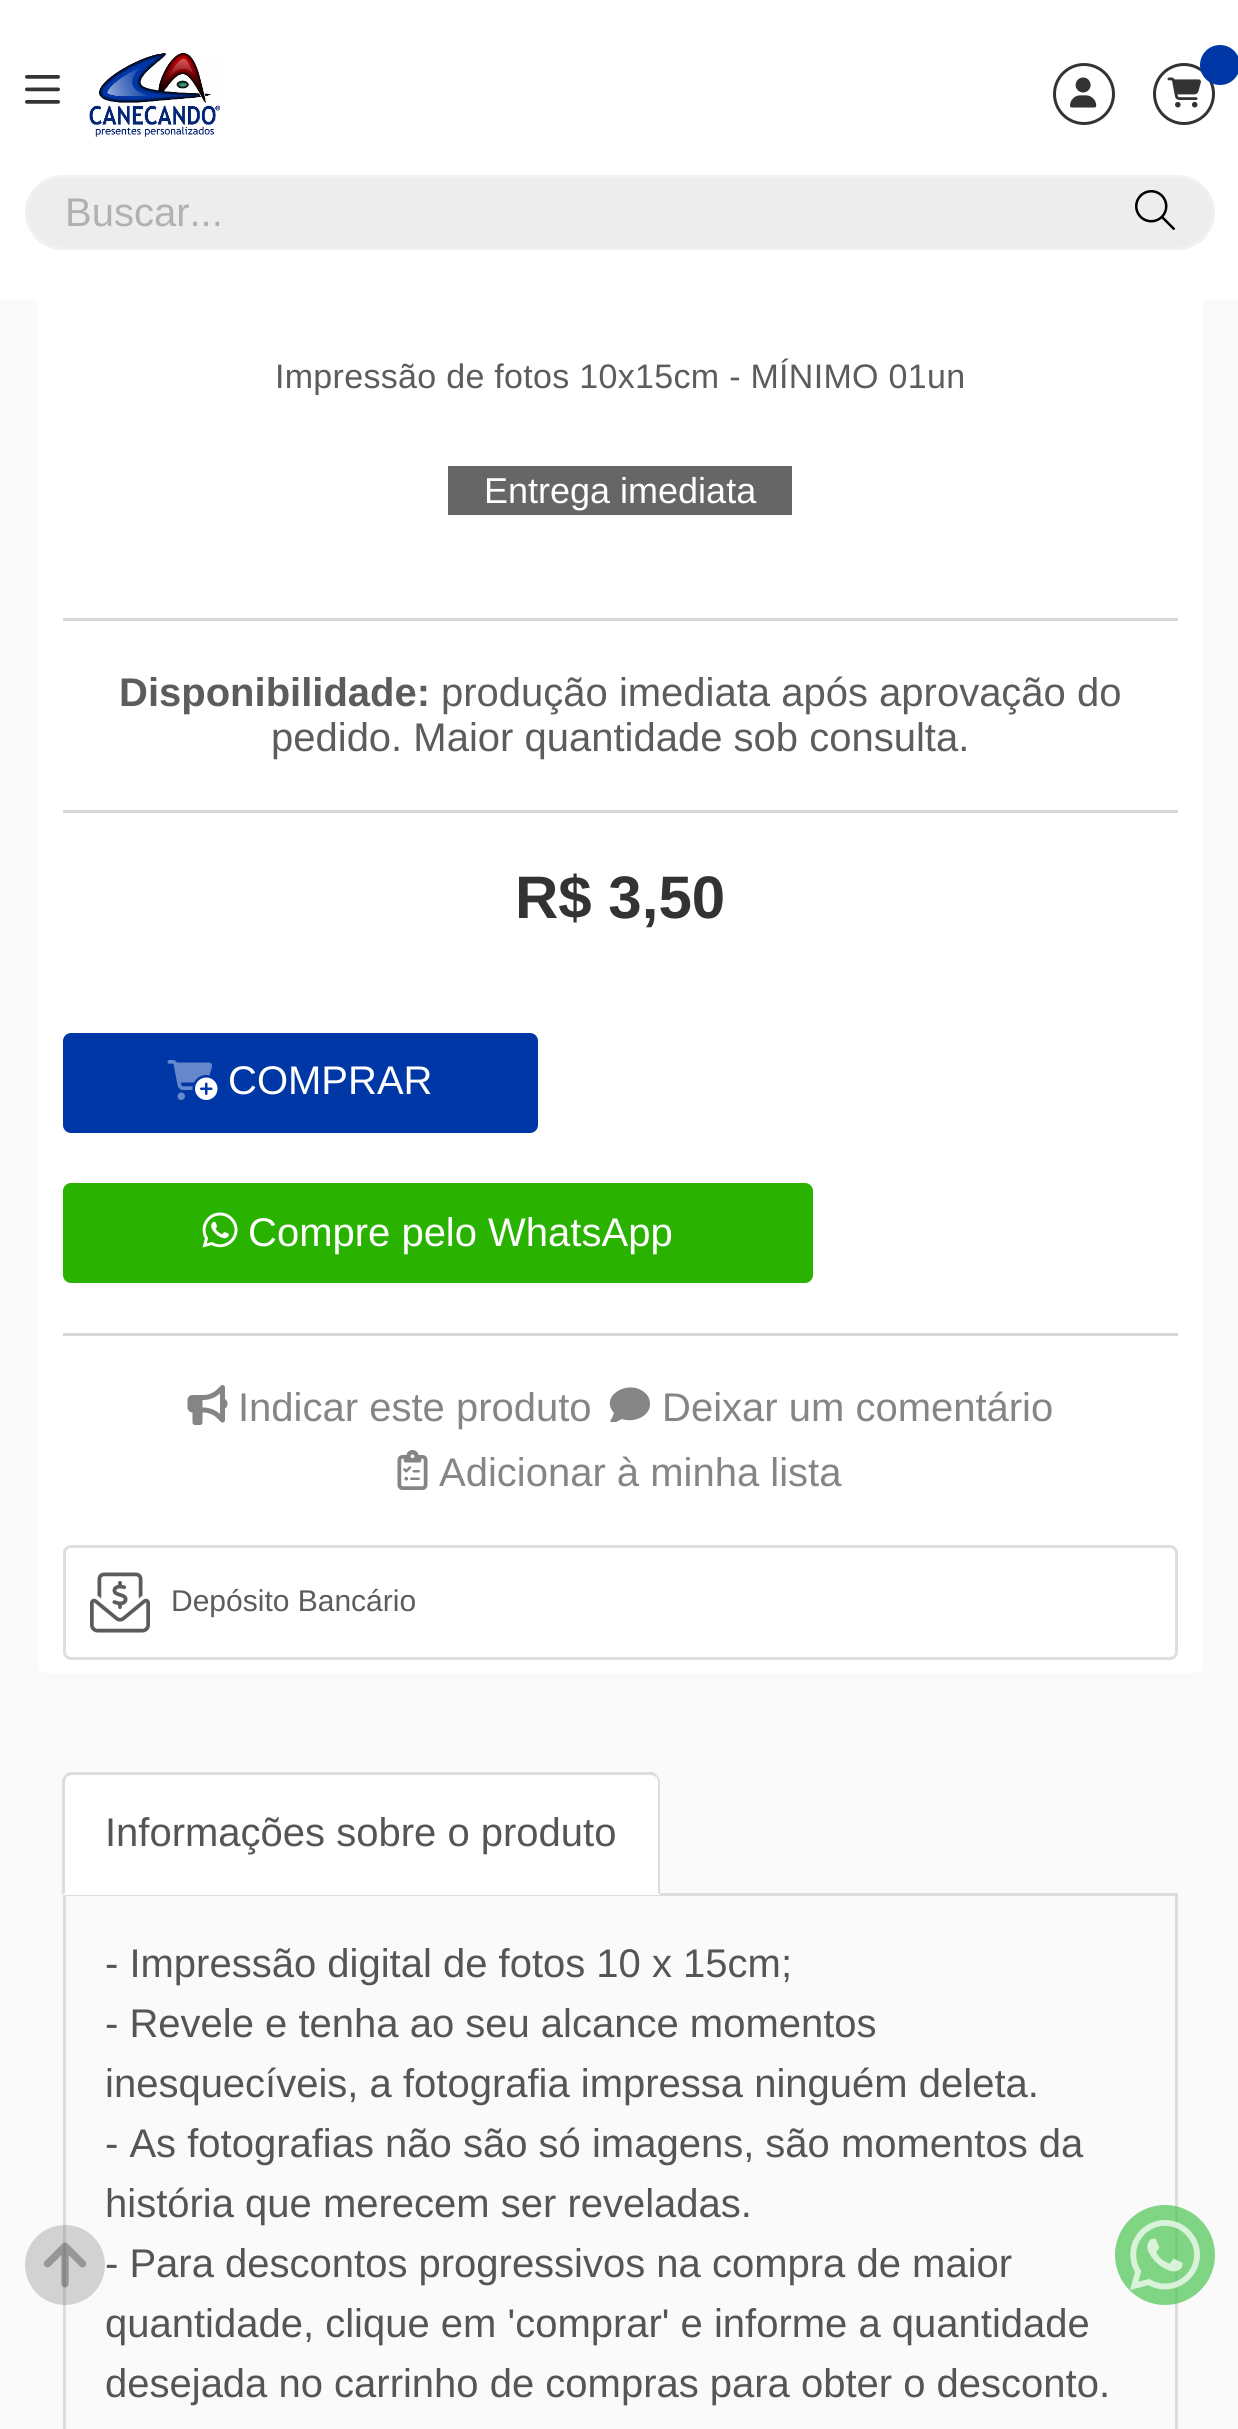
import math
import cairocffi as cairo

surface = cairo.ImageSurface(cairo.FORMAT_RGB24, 1238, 2429)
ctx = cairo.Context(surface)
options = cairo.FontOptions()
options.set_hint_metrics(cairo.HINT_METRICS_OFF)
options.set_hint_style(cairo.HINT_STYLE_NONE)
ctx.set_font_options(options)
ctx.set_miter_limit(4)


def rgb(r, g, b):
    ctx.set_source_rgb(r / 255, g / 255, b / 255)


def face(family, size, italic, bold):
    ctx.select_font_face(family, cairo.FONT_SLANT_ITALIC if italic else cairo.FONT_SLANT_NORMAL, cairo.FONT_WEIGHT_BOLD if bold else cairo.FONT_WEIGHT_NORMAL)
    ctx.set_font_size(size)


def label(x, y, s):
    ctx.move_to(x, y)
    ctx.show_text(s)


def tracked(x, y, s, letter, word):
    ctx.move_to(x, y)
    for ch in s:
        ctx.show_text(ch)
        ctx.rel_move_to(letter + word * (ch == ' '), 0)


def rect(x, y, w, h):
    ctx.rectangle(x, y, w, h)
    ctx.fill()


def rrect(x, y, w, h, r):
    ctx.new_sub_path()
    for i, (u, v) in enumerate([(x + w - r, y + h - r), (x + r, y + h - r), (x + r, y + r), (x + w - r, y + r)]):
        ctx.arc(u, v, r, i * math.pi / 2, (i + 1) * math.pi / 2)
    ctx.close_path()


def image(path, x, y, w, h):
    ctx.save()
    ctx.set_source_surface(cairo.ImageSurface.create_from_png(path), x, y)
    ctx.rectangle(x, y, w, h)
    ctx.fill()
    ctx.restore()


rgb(250, 250, 250)
ctx.paint()
rgb(255, 255, 255)
rrect(38, -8, 1165, 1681, 8)
ctx.fill()
rect(0, 0, 1238, 300)
image('image0.png', 25, 75, 35, 29)
image('image1.png', 89, 53, 131, 84)
ctx.arc(1084, 94, 29.5, 0, 2 * math.pi)
rgb(51, 51, 51)
ctx.set_line_width(3)
ctx.stroke()
image('image2.png', 1070, 77, 27, 31)
ctx.arc(1184, 94, 29.5, 0, 2 * math.pi)
ctx.stroke()
image('image3.png', 1167, 77, 34, 31)
rgb(0, 55, 166)
ctx.arc(1220, 65, 20, 0, 2 * math.pi)
ctx.fill()
rgb(237, 237, 237)
rrect(26.5, 176.5, 1187, 72, 36)
ctx.fill_preserve()
rgb(241, 241, 241)
ctx.stroke()
face('Liberation Sans', 40, 0, 0)
rgb(177, 177, 177)
label(65, 226, 'Buscar...')
image('image4.png', 1135, 190, 40, 40)
ctx.rectangle(64.5, 1894.5, 1112, 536)
rgb(221, 221, 221)
ctx.stroke()
image('image5.png', 25, 2225, 80, 80)
rgb(214, 214, 214)
rect(63, 618, 1115, 3)
face('Liberation Sans', 34, 0, 0)
rgb(92, 92, 92)
tracked(275, 388, 'Impressão de fotos 10x15cm - MÍNIMO 01un', 0.3, 0)
rgb(102, 102, 102)
rect(448, 466, 344, 49)
face('Liberation Sans', 36, 0, 0)
rgb(255, 255, 255)
label(484, 503, 'Entrega imediata')
rgb(214, 214, 214)
rect(63, 810, 1115, 3)
face('Liberation Sans', 40, 0, 1)
rgb(92, 92, 92)
label(119, 706, 'Disponibilidade:')
face('Liberation Sans', 40, 0, 0)
label(441, 706, 'produção imediata após aprovação do')
label(271, 751, 'pedido. Maior quantidade sob consulta.')
face('Liberation Sans', 60, 0, 1)
rgb(51, 51, 51)
label(515, 918, 'R$ 3,50')
rgb(214, 214, 214)
rect(63, 1333, 1115, 3)
rgb(0, 55, 166)
rrect(63, 1033, 475, 100, 8)
ctx.fill()
image('image6.png', 167, 1060, 51, 40)
face('Liberation Sans', 40, 0, 0)
rgb(255, 255, 255)
label(228, 1094, 'COMPRAR')
rgb(42, 178, 0)
rrect(63, 1183, 750, 100, 8)
ctx.fill()
image('image7.png', 202, 1212, 36, 36)
rgb(255, 255, 255)
label(248, 1246, 'Compre pelo WhatsApp')
image('image8.png', 187, 1385, 41, 40)
rgb(133, 133, 133)
label(238, 1421, 'Indicar este produto')
ctx.new_path()
ctx.move_to(650, 1404)
ctx.curve_to(650, 1417, 633, 1423, 622, 1419)
ctx.line_to(616, 1422)
ctx.line_to(611, 1422)
ctx.curve_to(609, 1422, 612, 1418, 612, 1418)
ctx.line_to(614, 1413)
ctx.curve_to(599, 1396, 628, 1379, 644, 1392)
ctx.curve_to(648, 1395, 650, 1399, 650, 1404)
ctx.close_path()
ctx.fill()
label(662, 1421, 'Deixar um comentário')
image('image9.png', 397, 1450, 31, 40)
label(439, 1486, 'Adicionar à minha lista')
rrect(64.5, 1546.5, 1112, 112, 6.5)
rgb(222, 222, 222)
ctx.stroke()
image('image10.png', 90, 1572, 60, 61)
face('Liberation Sans', 30, 0, 0)
rgb(92, 92, 92)
label(171, 1611, 'Depósito Bancário')
rgb(255, 255, 255)
ctx.new_path()
ctx.move_to(73, 1773)
ctx.line_to(650, 1773)
ctx.curve_to(655.5, 1773, 660, 1777.5, 660, 1783)
ctx.line_to(660, 1895)
ctx.line_to(63, 1895)
ctx.line_to(63, 1783)
ctx.curve_to(63, 1777.5, 67.5, 1773, 73, 1773)
ctx.close_path()
ctx.fill()
rgb(221, 221, 221)
ctx.new_path()
ctx.move_to(72, 1775)
ctx.curve_to(70, 1775, 68, 1776, 67, 1777)
ctx.line_to(65, 1775)
ctx.line_to(69, 1772)
ctx.line_to(653, 1772)
ctx.line_to(657, 1775)
ctx.line_to(656, 1777)
ctx.curve_to(654, 1776, 652, 1775, 650, 1775)
ctx.close_path()
ctx.fill()
ctx.new_path()
ctx.move_to(660, 1895)
ctx.line_to(660, 1782)
ctx.curve_to(660, 1780, 659, 1777, 657, 1775)
ctx.line_to(656, 1777)
ctx.curve_to(657, 1778, 658, 1780, 658, 1782)
ctx.line_to(658, 1892)
ctx.line_to(657, 1892)
ctx.close_path()
ctx.fill()
rgb(255, 255, 255)
ctx.new_path()
ctx.move_to(660, 1895)
ctx.line_to(657, 1892)
ctx.line_to(66, 1892)
ctx.line_to(62, 1895)
ctx.close_path()
ctx.fill()
rgb(221, 221, 221)
ctx.new_path()
ctx.move_to(62, 1895)
ctx.line_to(62, 1779)
ctx.line_to(65, 1775)
ctx.line_to(67, 1777)
ctx.line_to(65, 1781)
ctx.line_to(65, 1892)
ctx.line_to(66, 1892)
ctx.close_path()
ctx.fill()
face('Liberation Sans', 40, 0, 0)
rgb(85, 85, 85)
label(105, 1846, 'Informações sobre o produto')
label(105, 1977, '- Impressão digital de fotos 10 x 15cm;')
label(105, 2037, '- Revele e tenha ao seu alcance momentos')
label(105, 2097, 'inesquecíveis, a fotografia impressa ninguém deleta.')
label(105, 2157, '- As fotografias não são só imagens, são momentos da')
label(105, 2217, 'história que merecem ser reveladas.')
label(105, 2277, '- Para descontos progressivos na compra de maior')
label(105, 2337, 'quantidade, clique em \'comprar\' e informe a quantidade')
label(105, 2397, 'desejada no carrinho de compras para obter o desconto.')
ctx.set_source_rgba(0.298, 0.773, 0.329, 0.7)
ctx.new_path()
ctx.arc(1165, 2255, 50, 0, 2 * math.pi)
ctx.fill()
image('image11.png', 1130, 2220, 70, 70)
surface.write_to_png('render.png')
